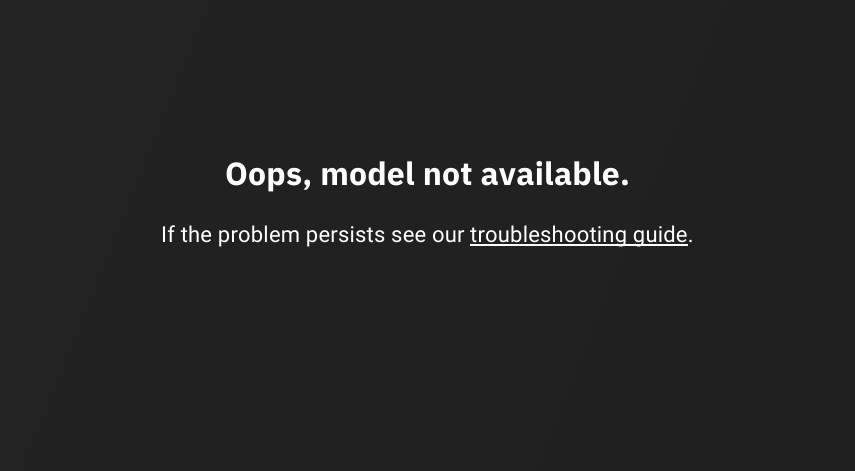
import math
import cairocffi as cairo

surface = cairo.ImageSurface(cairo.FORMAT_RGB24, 855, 471)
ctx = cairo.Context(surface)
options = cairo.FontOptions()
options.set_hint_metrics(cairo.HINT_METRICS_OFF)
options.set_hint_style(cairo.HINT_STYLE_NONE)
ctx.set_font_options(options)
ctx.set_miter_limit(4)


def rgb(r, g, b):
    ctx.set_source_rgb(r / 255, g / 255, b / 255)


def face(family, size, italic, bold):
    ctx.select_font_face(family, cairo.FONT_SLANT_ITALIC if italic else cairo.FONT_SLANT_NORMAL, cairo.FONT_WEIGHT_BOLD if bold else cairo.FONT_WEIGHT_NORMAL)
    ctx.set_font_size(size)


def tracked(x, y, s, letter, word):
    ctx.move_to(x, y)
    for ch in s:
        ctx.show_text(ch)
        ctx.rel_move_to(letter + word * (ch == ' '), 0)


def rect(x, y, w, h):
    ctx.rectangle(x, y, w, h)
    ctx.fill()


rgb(255, 255, 255)
ctx.paint()
gradient = cairo.LinearGradient(-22, 54, 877, 417)
gradient.add_color_stop_rgba(0, 0.133, 0.133, 0.133, 1)
gradient.add_color_stop_rgba(1, 0.125, 0.125, 0.125, 1)
ctx.set_source(gradient)
rect(0, 0, 855, 471)
face('IBM Plex Sans', 32, 0, 1)
rgb(255, 255, 255)
tracked(225, 185, 'Oops, model not available.', 0.2, 0)
face('Roboto', 22, 0, 0)
tracked(161, 242, 'If the problem persists see our', 0.2, 0)
rect(470, 244, 218, 2)
tracked(470, 242, 'troubleshooting guide.', 0.2, 0)
surface.write_to_png('render.png')
